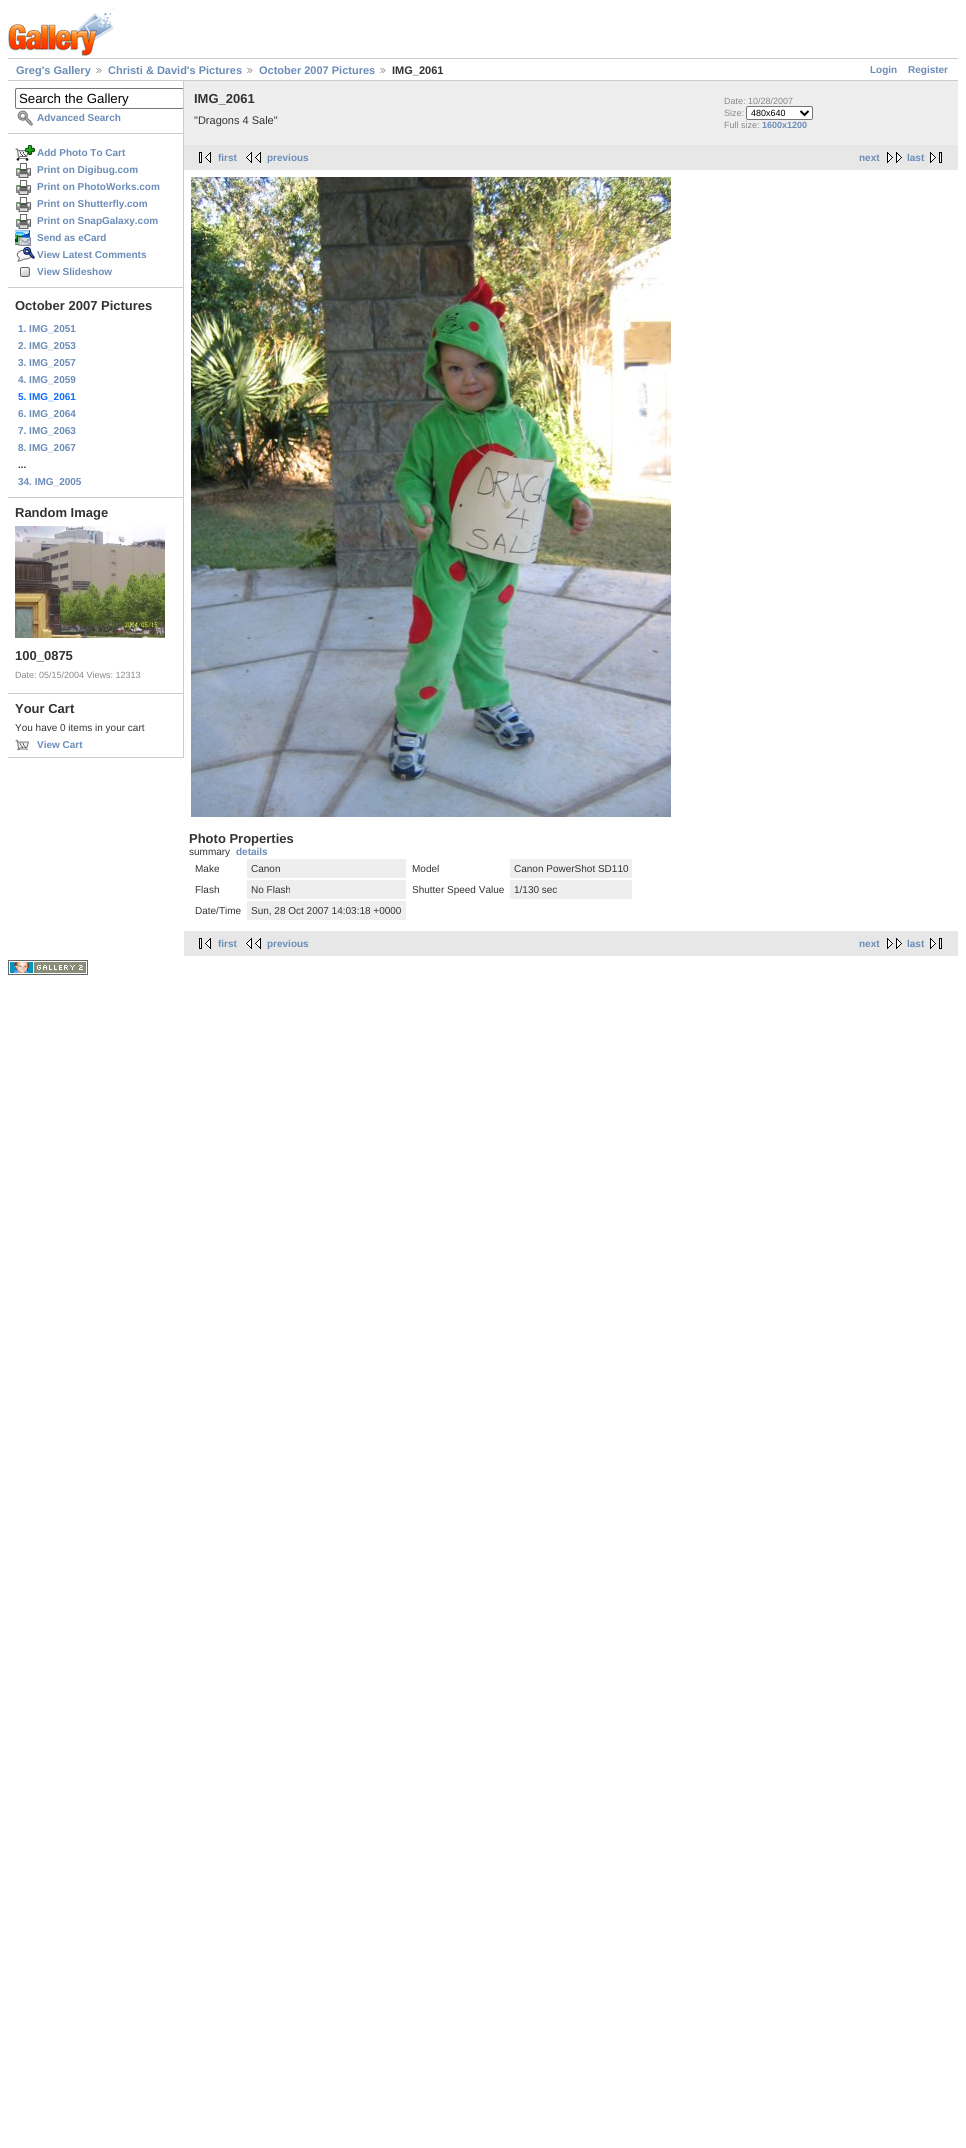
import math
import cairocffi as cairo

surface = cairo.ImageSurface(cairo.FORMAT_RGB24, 966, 2148)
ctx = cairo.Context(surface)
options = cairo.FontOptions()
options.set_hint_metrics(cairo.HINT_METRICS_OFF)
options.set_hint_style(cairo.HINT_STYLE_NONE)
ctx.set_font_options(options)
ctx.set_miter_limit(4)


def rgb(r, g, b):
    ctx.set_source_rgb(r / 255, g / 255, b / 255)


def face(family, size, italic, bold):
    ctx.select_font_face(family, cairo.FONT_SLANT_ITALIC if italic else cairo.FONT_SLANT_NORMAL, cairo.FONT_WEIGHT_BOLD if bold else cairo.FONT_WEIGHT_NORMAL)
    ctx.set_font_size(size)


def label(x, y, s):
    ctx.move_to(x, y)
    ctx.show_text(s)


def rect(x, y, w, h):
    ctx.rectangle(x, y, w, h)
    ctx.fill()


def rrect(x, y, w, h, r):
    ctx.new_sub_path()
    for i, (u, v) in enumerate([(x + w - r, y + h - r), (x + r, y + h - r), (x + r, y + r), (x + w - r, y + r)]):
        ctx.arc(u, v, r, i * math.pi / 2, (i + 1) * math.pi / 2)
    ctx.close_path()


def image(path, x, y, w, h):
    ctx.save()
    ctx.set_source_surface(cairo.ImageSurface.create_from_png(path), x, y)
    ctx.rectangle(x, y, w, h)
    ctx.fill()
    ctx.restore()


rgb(255, 255, 255)
ctx.paint()
image('image0.png', 8, 8, 107, 48)
rgb(204, 204, 204)
rect(8, 58, 950, 1)
rect(8, 80, 950, 1)
face('Liberation Sans', 11, 0, 1)
rgb(107, 140, 183)
label(16, 74, 'Greg\'s Gallery')
image('image1.png', 96, 68, 6, 5)
label(108, 74, 'Christi & David\'s Pictures')
image('image1.png', 247, 68, 6, 5)
label(259, 74, 'October 2007 Pictures')
image('image1.png', 380, 68, 6, 5)
rgb(51, 51, 51)
label(392, 74, 'IMG_2061')
face('Liberation Sans', 10, 0, 1)
rgb(107, 140, 183)
label(870, 73, 'Login')
label(908, 73, 'Register')
rgb(204, 204, 204)
rect(183, 81, 1, 677)
rect(8, 133, 175, 1)
ctx.save()
ctx.rectangle(8, 81, 175, 677)
ctx.clip()
rrect(15.5, 88.5, 168, 20, 1.5)
rgb(118, 118, 118)
ctx.set_line_width(1)
ctx.stroke()
ctx.restore()
face('Liberation Sans', 13.25, 0, 0)
rgb(0, 0, 0)
label(19, 103, 'Search the Gallery')
image('image2.png', 17, 110, 16, 16)
face('Liberation Sans', 10, 0, 1)
rgb(107, 140, 183)
label(37, 121, 'Advanced Search')
rgb(204, 204, 204)
rect(8, 287, 175, 1)
image('image3.png', 15, 145, 20, 16)
rgb(107, 140, 183)
label(37, 156, 'Add Photo To Cart')
image('image4.png', 16, 163, 16, 15)
label(37, 173, 'Print on Digibug.com')
image('image4.png', 16, 180, 16, 15)
label(37, 190, 'Print on PhotoWorks.com')
image('image4.png', 16, 197, 16, 15)
label(37, 207, 'Print on Shutterfly.com')
image('image4.png', 16, 214, 16, 15)
label(37, 224, 'Print on SnapGalaxy.com')
image('image5.png', 15, 230, 16, 16)
label(37, 241, 'Send as eCard')
image('image6.png', 16, 247, 19, 15)
label(37, 258, 'View Latest Comments')
image('image7.png', 20, 267, 10, 10)
label(37, 275, 'View Slideshow')
rgb(204, 204, 204)
rect(8, 497, 175, 1)
face('Liberation Sans', 13, 0, 1)
rgb(51, 51, 51)
label(15, 310, 'October 2007 Pictures')
face('Liberation Sans', 10, 0, 1)
rgb(107, 140, 183)
label(18, 332, '1. IMG_2051')
label(18, 349, '2. IMG_2053')
label(18, 366, '3. IMG_2057')
label(18, 383, '4. IMG_2059')
rgb(11, 108, 255)
label(18, 400, '5. IMG_2061')
rgb(107, 140, 183)
label(18, 417, '6. IMG_2064')
label(18, 434, '7. IMG_2063')
label(18, 451, '8. IMG_2067')
rgb(51, 51, 51)
label(18, 468, '...')
rgb(107, 140, 183)
label(18, 485, '34. IMG_2005')
rgb(204, 204, 204)
rect(8, 693, 175, 1)
face('Liberation Sans', 13, 0, 1)
rgb(51, 51, 51)
label(15, 517, 'Random Image')
image('image8.png', 15, 526, 150, 112)
label(15, 660, '100_0875')
face('Liberation Sans', 9, 0, 0)
rgb(136, 136, 136)
label(15, 678, 'Date: 05/15/2004 Views: 12313')
rgb(204, 204, 204)
rect(8, 757, 175, 1)
face('Liberation Sans', 13, 0, 1)
rgb(51, 51, 51)
label(15, 713, 'Your Cart')
face('Liberation Sans', 10, 0, 0)
label(15, 731, 'You have 0 items in your cart')
image('image9.png', 15, 739, 14, 11)
face('Liberation Sans', 10, 0, 1)
rgb(107, 140, 183)
label(37, 748, 'View Cart')
rgb(238, 238, 238)
rect(184, 81, 774, 64)
face('Liberation Sans', 13, 0, 1)
rgb(51, 51, 51)
label(194, 103, 'IMG_2061')
face('Liberation Sans', 11, 0, 0)
label(194, 124, '"Dragons 4 Sale"')
face('Liberation Sans', 9, 0, 0)
rgb(136, 136, 136)
label(724, 104, 'Date: 10/28/2007')
label(724, 116, 'Size:')
rgb(255, 255, 255)
rrect(746.5, 106.5, 66, 13, 1.5)
ctx.fill_preserve()
rgb(118, 118, 118)
ctx.set_line_width(1)
ctx.stroke()
ctx.new_path()
ctx.move_to(800.5, 111)
ctx.line_to(804.5, 115)
ctx.line_to(808.5, 111)
rgb(0, 0, 0)
ctx.set_line_width(2)
ctx.stroke()
label(751, 116, '480x640')
rgb(136, 136, 136)
label(724, 128, 'Full size:')
face('Liberation Sans', 9, 0, 1)
rgb(107, 140, 183)
label(762, 128, '1600x1200')
rgb(231, 231, 231)
rect(184, 145, 774, 25)
image('image10.png', 199, 152, 12, 11)
face('Liberation Sans', 10, 0, 1)
rgb(107, 140, 183)
label(218, 161, 'first')
image('image11.png', 246, 152, 15, 11)
label(267, 161, 'previous')
label(859, 161, 'next')
image('image12.png', 887, 152, 15, 11)
label(907, 161, 'last')
image('image13.png', 930, 152, 12, 11)
image('image14.png', 191, 177, 480, 640)
face('Liberation Sans', 13, 0, 1)
rgb(51, 51, 51)
label(189, 843, 'Photo Properties')
face('Liberation Sans', 10, 0, 0)
label(189, 855, 'summary')
face('Liberation Sans', 10, 0, 1)
rgb(107, 140, 183)
label(236, 855, 'details')
face('Liberation Sans', 10, 0, 0)
rgb(51, 51, 51)
label(195, 872, 'Make')
rgb(238, 238, 238)
rect(247, 859, 159, 19)
rgb(51, 51, 51)
label(251, 872, 'Canon')
label(412, 872, 'Model')
rgb(238, 238, 238)
rect(510, 859, 122, 19)
rgb(51, 51, 51)
label(514, 872, 'Canon PowerShot SD110')
label(195, 893, 'Flash')
rgb(238, 238, 238)
rect(247, 880, 159, 19)
rgb(51, 51, 51)
label(251, 893, 'No Flash')
label(412, 893, 'Shutter Speed Value')
rgb(238, 238, 238)
rect(510, 880, 122, 19)
rgb(51, 51, 51)
label(514, 893, '1/130 sec')
label(195, 914, 'Date/Time')
rgb(238, 238, 238)
rect(247, 901, 159, 19)
rgb(51, 51, 51)
label(251, 914, 'Sun, 28 Oct 2007 14:03:18 +0000')
rgb(231, 231, 231)
rect(184, 931, 774, 25)
image('image10.png', 199, 938, 12, 11)
face('Liberation Sans', 10, 0, 1)
rgb(107, 140, 183)
label(218, 947, 'first')
image('image11.png', 246, 938, 15, 11)
label(267, 947, 'previous')
label(859, 947, 'next')
image('image12.png', 887, 938, 15, 11)
label(907, 947, 'last')
image('image13.png', 930, 938, 12, 11)
image('image15.png', 8, 960, 80, 15)
surface.write_to_png('render.png')
